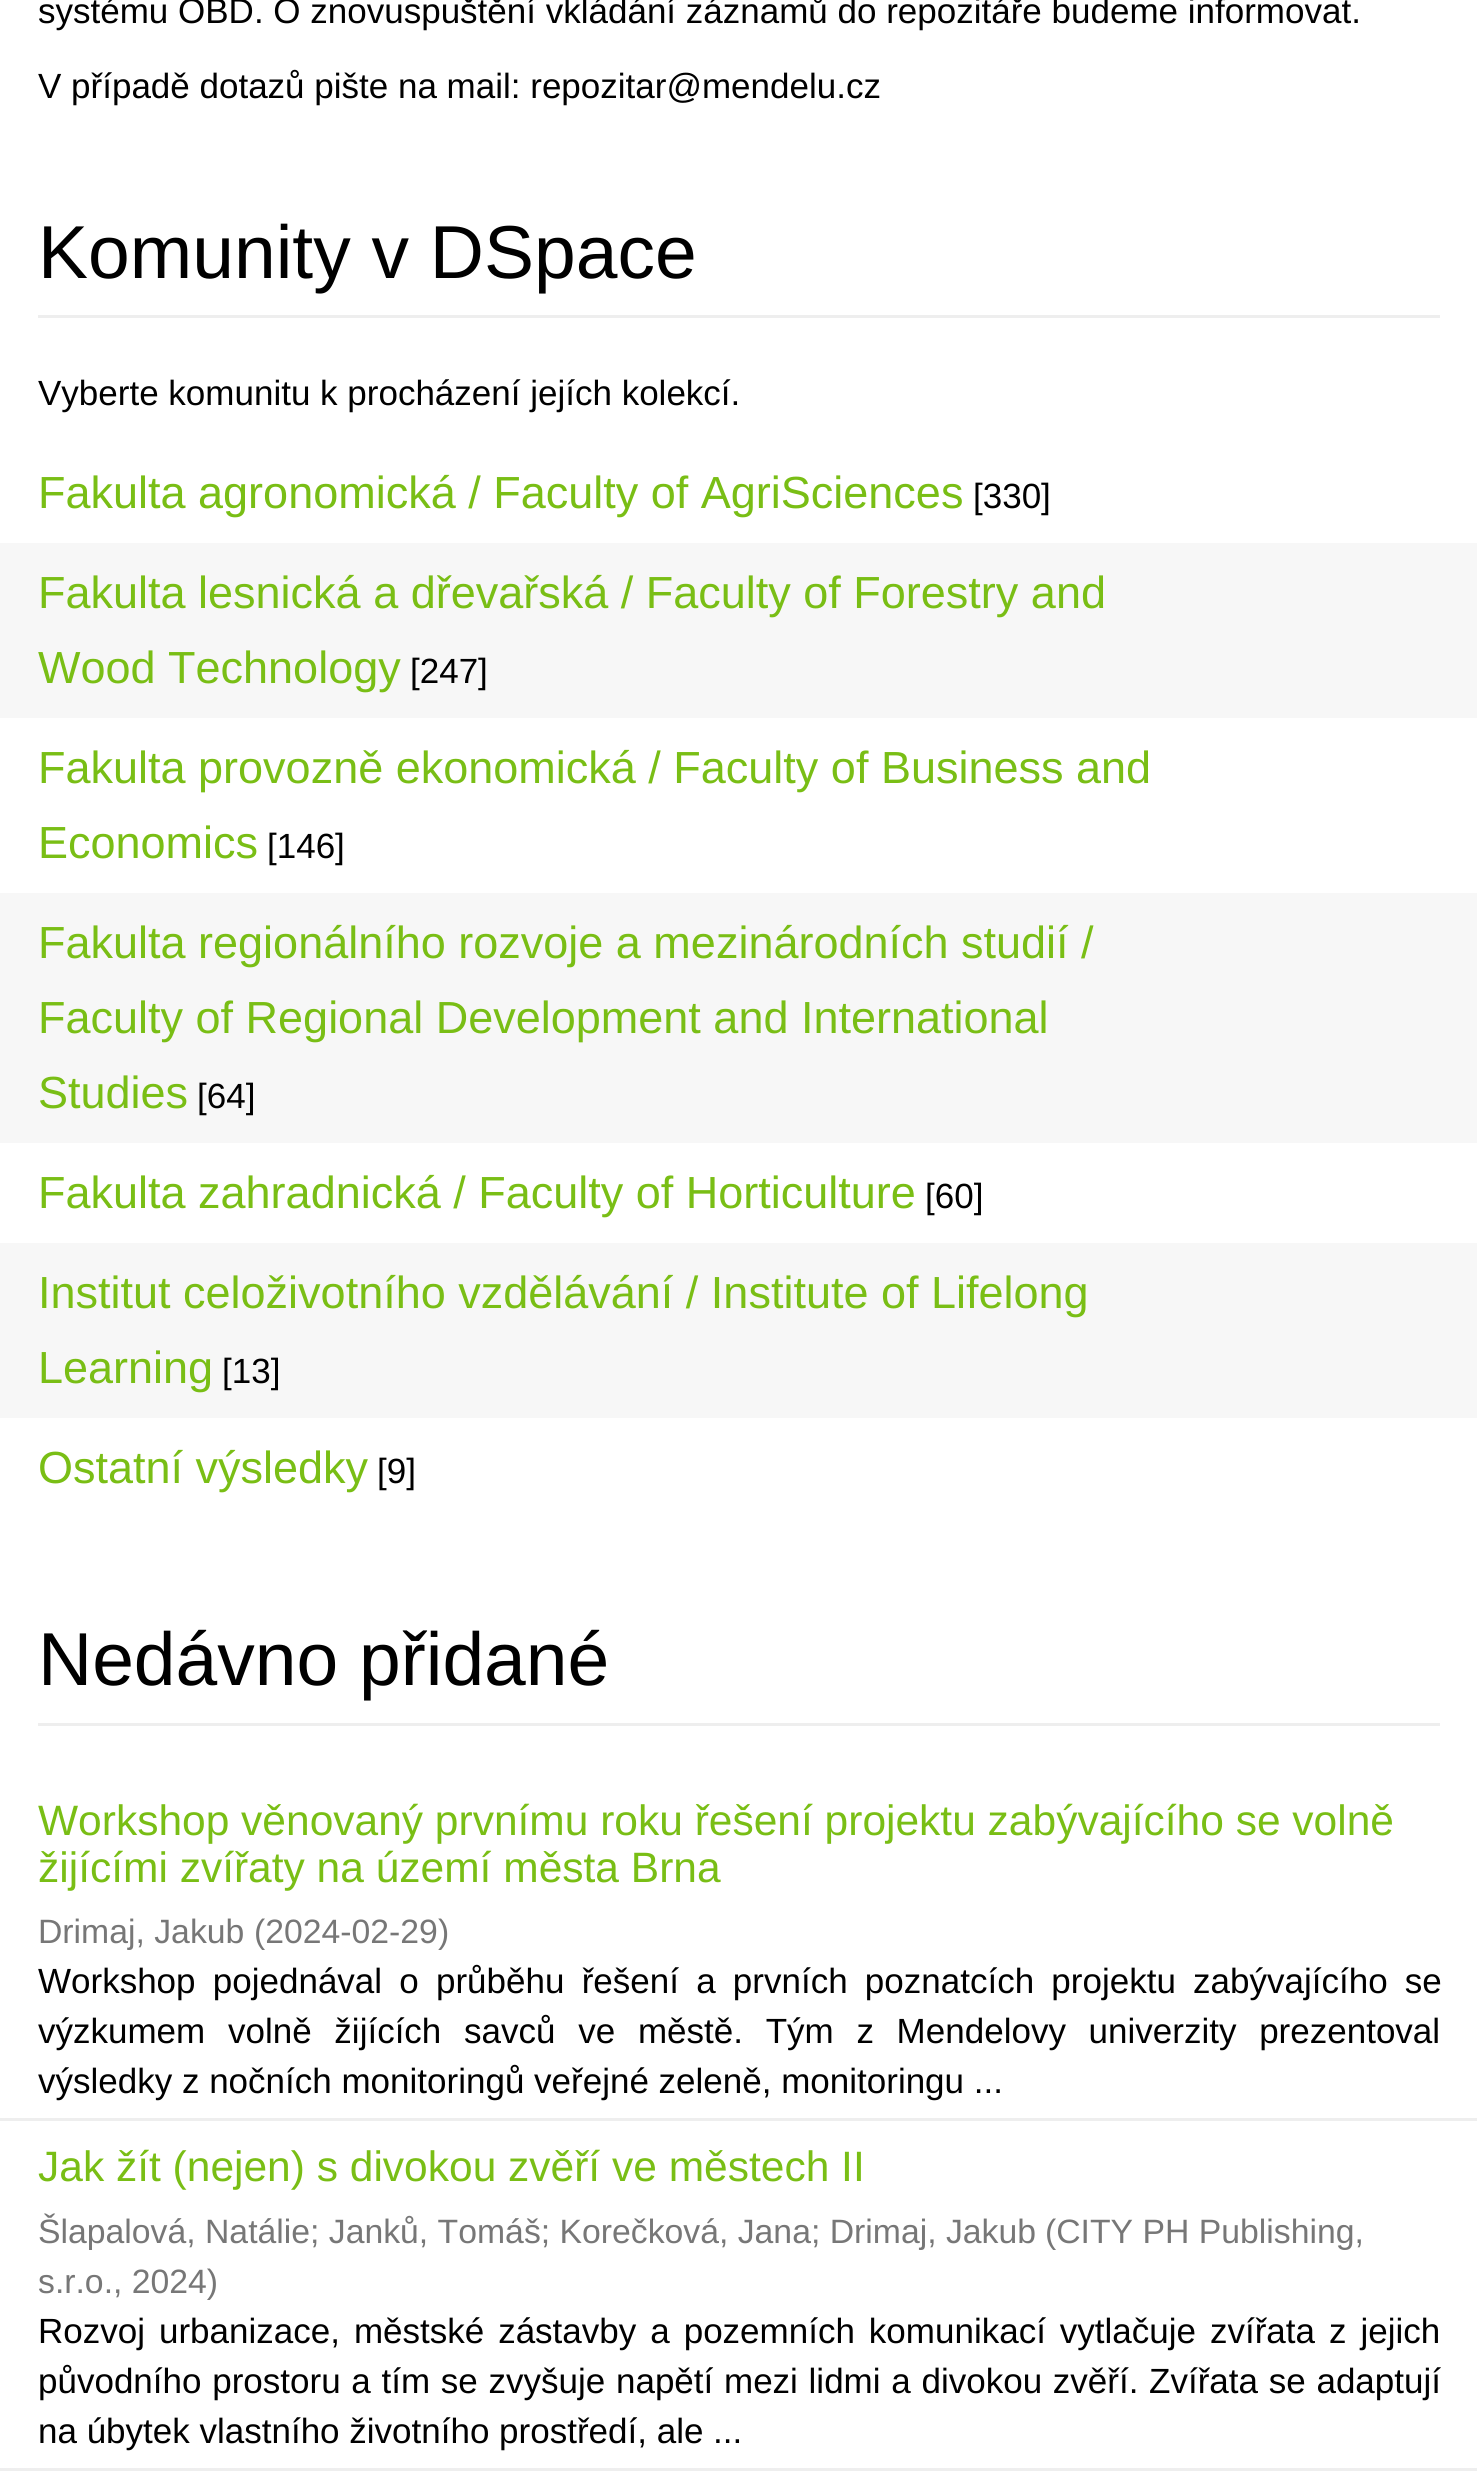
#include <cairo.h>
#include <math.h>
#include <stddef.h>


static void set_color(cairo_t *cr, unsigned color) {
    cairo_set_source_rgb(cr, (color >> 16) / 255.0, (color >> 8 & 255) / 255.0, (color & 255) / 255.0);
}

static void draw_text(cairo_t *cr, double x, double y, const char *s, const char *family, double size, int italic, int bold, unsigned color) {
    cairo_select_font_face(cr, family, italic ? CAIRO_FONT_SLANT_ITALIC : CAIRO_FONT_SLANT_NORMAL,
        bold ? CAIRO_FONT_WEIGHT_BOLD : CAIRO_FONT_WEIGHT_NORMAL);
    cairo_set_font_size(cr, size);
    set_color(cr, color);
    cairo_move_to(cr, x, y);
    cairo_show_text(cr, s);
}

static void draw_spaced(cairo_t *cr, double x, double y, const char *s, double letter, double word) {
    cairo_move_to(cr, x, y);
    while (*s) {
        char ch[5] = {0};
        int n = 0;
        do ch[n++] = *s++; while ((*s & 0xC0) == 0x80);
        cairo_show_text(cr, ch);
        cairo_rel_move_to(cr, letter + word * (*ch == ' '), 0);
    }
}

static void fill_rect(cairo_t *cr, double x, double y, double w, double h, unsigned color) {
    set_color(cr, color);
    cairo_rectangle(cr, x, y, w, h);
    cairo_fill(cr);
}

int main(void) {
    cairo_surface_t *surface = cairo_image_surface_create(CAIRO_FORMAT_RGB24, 1477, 2488);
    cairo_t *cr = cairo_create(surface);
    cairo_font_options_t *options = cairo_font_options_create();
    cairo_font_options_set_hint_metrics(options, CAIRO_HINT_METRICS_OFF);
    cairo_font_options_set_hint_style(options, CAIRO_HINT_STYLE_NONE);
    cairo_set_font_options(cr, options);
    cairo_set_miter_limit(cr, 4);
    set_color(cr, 0xFFFFFF);
    cairo_paint(cr);
    draw_text(cr, 38, 23, "systému OBD. O znovuspuštění vkládání záznamů do repozitáře budeme informovat.", "Liberation Sans", 35, 0, 0, 0x000000);
    draw_text(cr, 38, 98, "V případě dotazů pište na mail: repozitar@mendelu.cz", "Liberation Sans", 35, 0, 0, 0x000000);
    fill_rect(cr, 38, 315, 1402, 3, 0xEEEEEE);
    draw_text(cr, 38, 278, "Komunity v DSpace", "Liberation Sans", 75, 0, 0, 0x000000);
    draw_text(cr, 38, 405, "Vyberte komunitu k procházení jejích kolekcí.", "Liberation Sans", 35, 0, 0, 0x000000);
    draw_text(cr, 38, 508, "Fakulta agronomická / Faculty of AgriSciences", "Liberation Sans", 45, 0, 0, 0x79BE15);
    draw_text(cr, 973, 508, "[330]", "Liberation Sans", 35, 0, 0, 0x000000);
    fill_rect(cr, 0, 543, 1477, 175, 0xF7F7F7);
    draw_text(cr, 38, 608, "Fakulta lesnická a dřevařská / Faculty of Forestry and", "Liberation Sans", 45, 0, 0, 0x79BE15);
    draw_text(cr, 38, 683, "Wood Technology", "Liberation Sans", 45, 0, 0, 0x79BE15);
    draw_text(cr, 410, 683, "[247]", "Liberation Sans", 35, 0, 0, 0x000000);
    draw_text(cr, 38, 783, "Fakulta provozně ekonomická / Faculty of Business and", "Liberation Sans", 45, 0, 0, 0x79BE15);
    draw_text(cr, 38, 858, "Economics", "Liberation Sans", 45, 0, 0, 0x79BE15);
    draw_text(cr, 267, 858, "[146]", "Liberation Sans", 35, 0, 0, 0x000000);
    fill_rect(cr, 0, 893, 1477, 250, 0xF7F7F7);
    draw_text(cr, 38, 958, "Fakulta regionálního rozvoje a mezinárodních studií /", "Liberation Sans", 45, 0, 0, 0x79BE15);
    draw_text(cr, 38, 1033, "Faculty of Regional Development and International", "Liberation Sans", 45, 0, 0, 0x79BE15);
    draw_text(cr, 38, 1108, "Studies", "Liberation Sans", 45, 0, 0, 0x79BE15);
    draw_text(cr, 197, 1108, "[64]", "Liberation Sans", 35, 0, 0, 0x000000);
    draw_text(cr, 38, 1208, "Fakulta zahradnická / Faculty of Horticulture", "Liberation Sans", 45, 0, 0, 0x79BE15);
    draw_text(cr, 925, 1208, "[60]", "Liberation Sans", 35, 0, 0, 0x000000);
    fill_rect(cr, 0, 1243, 1477, 175, 0xF7F7F7);
    draw_text(cr, 38, 1308, "Institut celoživotního vzdělávání / Institute of Lifelong", "Liberation Sans", 45, 0, 0, 0x79BE15);
    draw_text(cr, 38, 1383, "Learning", "Liberation Sans", 45, 0, 0, 0x79BE15);
    draw_text(cr, 222, 1383, "[13]", "Liberation Sans", 35, 0, 0, 0x000000);
    draw_text(cr, 38, 1483, "Ostatní výsledky", "Liberation Sans", 45, 0, 0, 0x79BE15);
    draw_text(cr, 377, 1483, "[9]", "Liberation Sans", 35, 0, 0, 0x000000);
    fill_rect(cr, 38, 1723, 1402, 3, 0xEEEEEE);
    draw_text(cr, 38, 1685, "Nedávno přidané", "Liberation Sans", 75, 0, 0, 0x000000);
    fill_rect(cr, 0, 2118, 1477, 3, 0xEEEEEE);
    draw_text(cr, 38, 1835, "Workshop věnovaný prvnímu roku řešení projektu zabývajícího se volně", "Liberation Sans", 42.5, 0, 0, 0x79BE15);
    draw_text(cr, 38, 1882, "žijícími zvířaty na území města Brna", "Liberation Sans", 42.5, 0, 0, 0x79BE15);
    draw_text(cr, 38, 1943, "Drimaj, Jakub", "Liberation Sans", 33.75, 0, 0, 0x777777);
    draw_text(cr, 254, 1943, "(2024-02-29)", "Liberation Sans", 33.75, 0, 0, 0x777777);
    cairo_set_font_size(cr, 35);
    set_color(cr, 0x000000);
    draw_spaced(cr, 38, 1993, "Workshop pojednával o průběhu řešení a prvních poznatcích projektu zabývajícího se", 0, 7.5);
    draw_spaced(cr, 38, 2043, "výzkumem volně žijících savců ve městě. Tým z Mendelovy univerzity prezentoval", 0, 13);
    draw_text(cr, 38, 2093, "výsledky z nočních monitoringů veřejné zeleně, monitoringu ...", "Liberation Sans", 35, 0, 0, 0x000000);
    fill_rect(cr, 0, 2468, 1477, 3, 0xEEEEEE);
    draw_text(cr, 38, 2181, "Jak žít (nejen) s divokou zvěří ve městech II", "Liberation Sans", 42.5, 0, 0, 0x79BE15);
    draw_text(cr, 38, 2243, "Šlapalová, Natálie; Janků, Tomáš; Korečková, Jana; Drimaj, Jakub", "Liberation Sans", 33.75, 0, 0, 0x777777);
    draw_text(cr, 1045, 2243, "(CITY PH Publishing,", "Liberation Sans", 33.75, 0, 0, 0x777777);
    draw_text(cr, 38, 2293, "s.r.o., 2024)", "Liberation Sans", 33.75, 0, 0, 0x777777);
    cairo_set_font_size(cr, 35);
    set_color(cr, 0x000000);
    draw_spaced(cr, 38, 2343, "Rozvoj urbanizace, městské zástavby a pozemních komunikací vytlačuje zvířata z jejich", 0, 4.25);
    draw_spaced(cr, 38, 2393, "původního prostoru a tím se zvyšuje napětí mezi lidmi a divokou zvěří. Zvířata se adaptují", 0, 1);
    draw_text(cr, 38, 2443, "na úbytek vlastního životního prostředí, ale ...", "Liberation Sans", 35, 0, 0, 0x000000);
    cairo_surface_write_to_png(surface, "output.png");
    cairo_font_options_destroy(options);
    cairo_destroy(cr);
    cairo_surface_destroy(surface);
    return 0;
}
